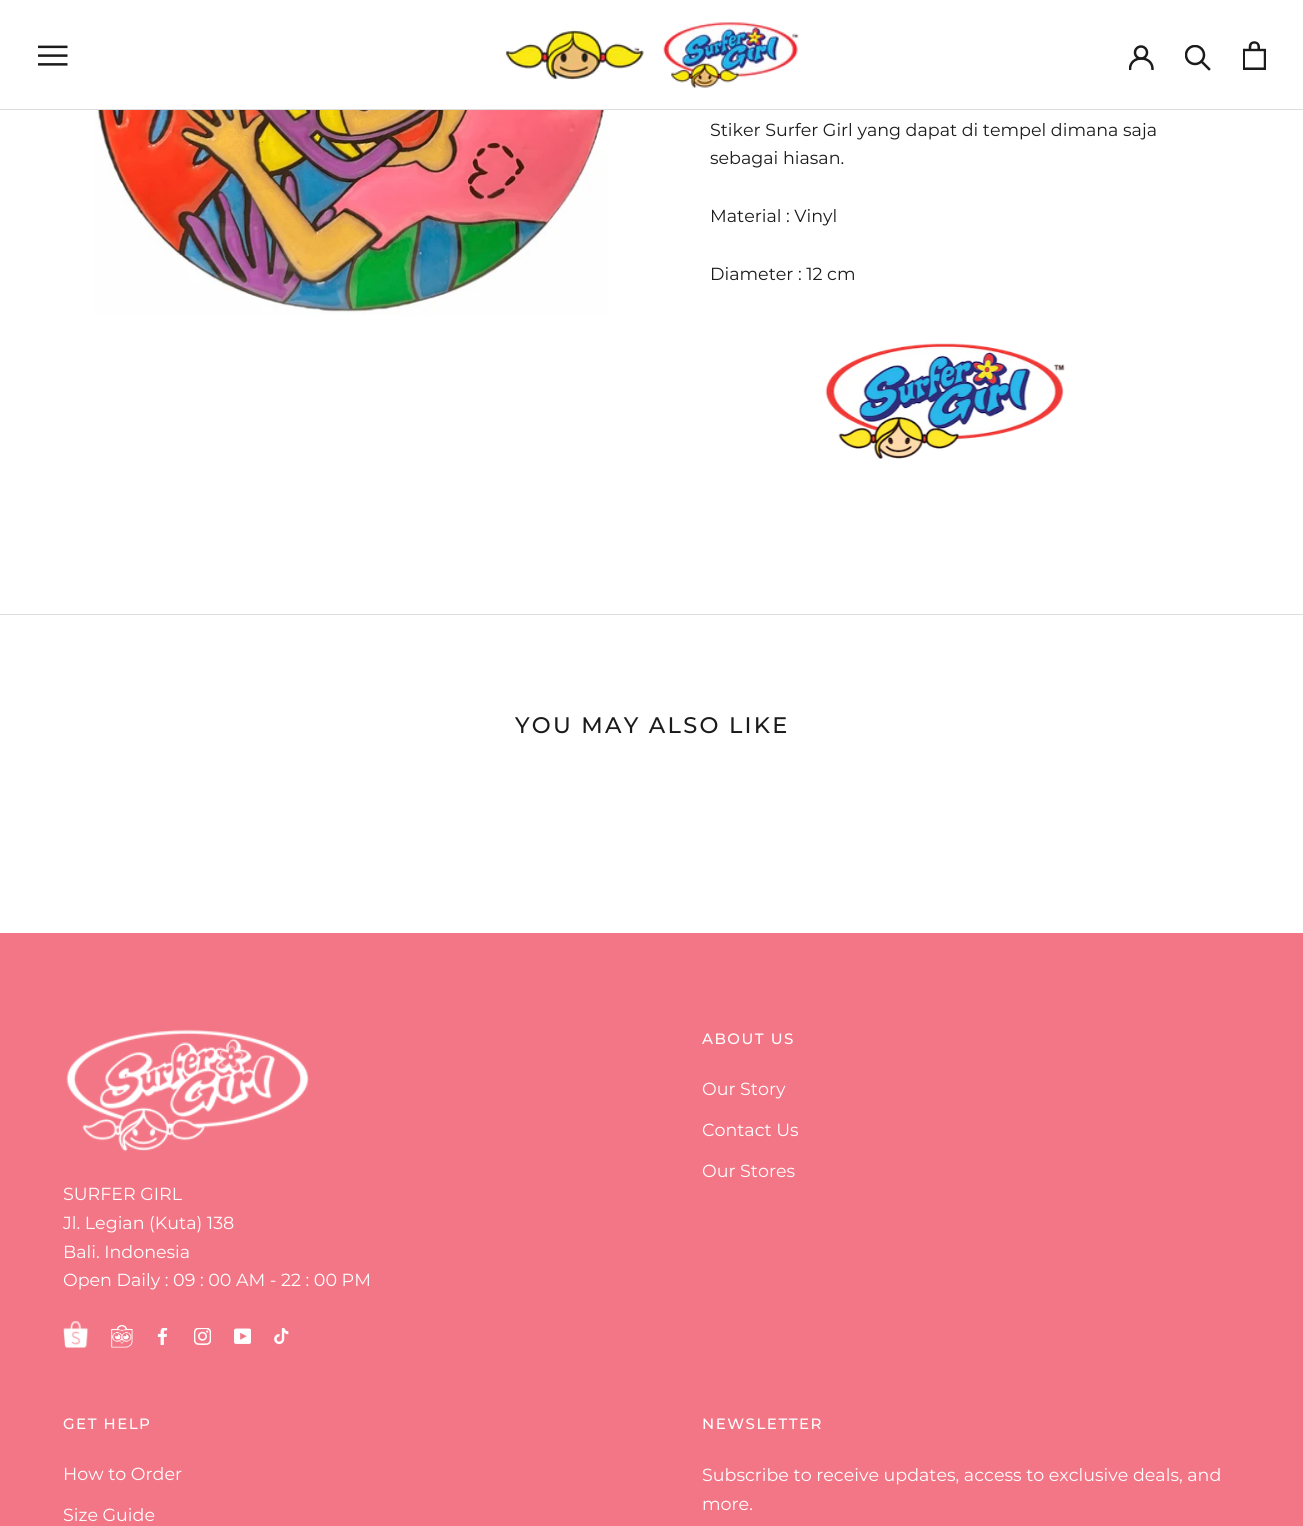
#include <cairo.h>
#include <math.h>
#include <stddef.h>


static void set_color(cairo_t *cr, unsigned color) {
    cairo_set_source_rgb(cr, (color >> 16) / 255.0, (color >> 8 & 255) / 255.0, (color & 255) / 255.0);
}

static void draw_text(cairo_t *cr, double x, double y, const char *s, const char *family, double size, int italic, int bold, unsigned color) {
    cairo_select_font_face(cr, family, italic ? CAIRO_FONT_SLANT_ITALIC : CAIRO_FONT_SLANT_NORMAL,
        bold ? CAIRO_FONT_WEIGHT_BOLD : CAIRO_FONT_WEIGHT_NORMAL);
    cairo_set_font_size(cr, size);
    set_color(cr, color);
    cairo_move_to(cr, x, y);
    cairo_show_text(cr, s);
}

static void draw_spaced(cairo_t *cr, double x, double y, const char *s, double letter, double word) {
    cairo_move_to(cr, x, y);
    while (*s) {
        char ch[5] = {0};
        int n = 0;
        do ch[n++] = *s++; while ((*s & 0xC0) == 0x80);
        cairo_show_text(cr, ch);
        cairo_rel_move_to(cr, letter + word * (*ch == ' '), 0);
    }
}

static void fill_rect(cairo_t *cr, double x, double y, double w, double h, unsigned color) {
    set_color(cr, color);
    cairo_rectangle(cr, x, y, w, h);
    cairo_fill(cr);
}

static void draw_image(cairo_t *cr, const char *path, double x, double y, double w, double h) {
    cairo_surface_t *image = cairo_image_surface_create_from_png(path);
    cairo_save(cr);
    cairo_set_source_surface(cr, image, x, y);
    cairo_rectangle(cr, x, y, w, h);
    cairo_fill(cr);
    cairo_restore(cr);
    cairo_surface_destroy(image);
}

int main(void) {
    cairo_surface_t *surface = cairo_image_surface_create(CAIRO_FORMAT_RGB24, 1303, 1526);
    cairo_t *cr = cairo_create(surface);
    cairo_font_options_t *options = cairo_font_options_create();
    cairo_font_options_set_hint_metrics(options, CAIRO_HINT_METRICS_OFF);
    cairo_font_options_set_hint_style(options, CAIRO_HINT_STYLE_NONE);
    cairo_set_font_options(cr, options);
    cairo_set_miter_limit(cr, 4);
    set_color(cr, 0xFFFFFF);
    cairo_paint(cr);
    fill_rect(cr, 0, 109, 1303, 1, 0xDDDDDD);
    draw_image(cr, "assets/img1.png", 38, 45, 30, 21);
    draw_image(cr, "assets/img2.png", 505, 22, 294, 66);
    cairo_save(cr);
    cairo_rectangle(cr, 1129, 45, 25, 25);
    cairo_clip(cr);
    cairo_new_path(cr);
    cairo_move_to(cr, 1130, 69);
    cairo_curve_to(cr, 1130, 55, 1152.5, 55, 1152.5, 69);
    set_color(cr, 0x1C1B1B);
    cairo_set_line_width(cr, 2.5);
    cairo_set_line_cap(cr, CAIRO_LINE_CAP_SQUARE);
    cairo_stroke(cr);
    cairo_restore(cr);
    cairo_arc(cr, 1141, 52.5, 6, 0, 2 * M_PI);
    set_color(cr, 0x1C1B1B);
    cairo_set_line_width(cr, 2.5);
    cairo_stroke(cr);
    cairo_new_path(cr);
    cairo_move_to(cr, 1209, 69);
    cairo_line_to(cr, 1201.5, 61.5);
    cairo_set_line_cap(cr, CAIRO_LINE_CAP_SQUARE);
    cairo_stroke(cr);
    cairo_save(cr);
    cairo_rectangle(cr, 1185, 45, 26, 26);
    cairo_clip(cr);
    cairo_arc(cr, 1195, 55, 9, 0, 2 * M_PI);
    cairo_set_line_cap(cr, CAIRO_LINE_CAP_BUTT);
    cairo_stroke(cr);
    cairo_restore(cr);
    draw_image(cr, "assets/img3.png", 1243, 41, 23, 29);
    draw_image(cr, "assets/img4.png", 94, 110, 515, 205);
    draw_text(cr, 710, 136, "Stiker Surfer Girl yang dapat di tempel dimana saja", "Montserrat", 17.5, 0, 0, 0x1C1B1B);
    draw_text(cr, 710, 164, "sebagai hiasan.", "Montserrat", 17.5, 0, 0, 0x1C1B1B);
    draw_text(cr, 710, 222, "Material : Vinyl", "Montserrat", 17.5, 0, 0, 0x1C1B1B);
    draw_text(cr, 710, 280, "Diameter : 12 cm", "Montserrat", 17.5, 0, 0, 0x1C1B1B);
    draw_image(cr, "assets/img5.png", 825, 343, 240, 116);
    fill_rect(cr, 0, 614, 1303, 1, 0xDDDDDD);
    cairo_select_font_face(cr, "Montserrat Medium", CAIRO_FONT_SLANT_NORMAL, CAIRO_FONT_WEIGHT_NORMAL);
    cairo_set_font_size(cr, 22.5);
    set_color(cr, 0x1C1B1B);
    draw_spaced(cr, 515, 733, "YOU MAY ALSO LIKE", 2.25, 0);
    fill_rect(cr, 0, 933, 1303, 593, 0xF37686);
    cairo_set_font_size(cr, 15);
    set_color(cr, 0xFFFFFF);
    draw_spaced(cr, 702, 1044, "ABOUT US", 1.5, 0);
    draw_text(cr, 702, 1095, "Our Story", "Montserrat", 17.5, 0, 0, 0xFFFFFF);
    draw_text(cr, 702, 1136, "Contact Us", "Montserrat", 17.5, 0, 0, 0xFFFFFF);
    draw_text(cr, 702, 1177, "Our Stores", "Montserrat", 17.5, 0, 0, 0xFFFFFF);
    draw_image(cr, "assets/img6.png", 66, 1029, 243, 123);
    draw_text(cr, 63, 1200, "SURFER GIRL", "Montserrat", 17.5, 0, 0, 0xFFFFFF);
    draw_text(cr, 63, 1229, "Jl. Legian (Kuta) 138", "Montserrat", 17.5, 0, 0, 0xFFFFFF);
    draw_text(cr, 63, 1258, "Bali. Indonesia", "Montserrat", 17.5, 0, 0, 0xFFFFFF);
    draw_text(cr, 63, 1286, "Open Daily : 09 : 00 AM - 22 : 00 PM", "Montserrat", 17.5, 0, 0, 0xFFFFFF);
    draw_image(cr, "assets/img7.png", 63, 1320, 26, 28);
    draw_image(cr, "assets/img8.png", 111, 1325, 22, 23);
    draw_image(cr, "assets/img9.png", 157, 1328, 11, 17);
    draw_image(cr, "assets/img10.png", 194, 1328, 17, 17);
    draw_image(cr, "assets/img11.png", 234, 1328, 17, 16);
    draw_image(cr, "assets/img12.png", 274, 1328, 15, 17);
    cairo_select_font_face(cr, "Montserrat Medium", CAIRO_FONT_SLANT_NORMAL, CAIRO_FONT_WEIGHT_NORMAL);
    cairo_set_font_size(cr, 15);
    draw_spaced(cr, 63, 1429, "GET HELP", 1.5, 0);
    draw_text(cr, 63, 1480, "How to Order", "Montserrat", 17.5, 0, 0, 0xFFFFFF);
    draw_text(cr, 63, 1521, "Size Guide", "Montserrat", 17.5, 0, 0, 0xFFFFFF);
    cairo_select_font_face(cr, "Montserrat Medium", CAIRO_FONT_SLANT_NORMAL, CAIRO_FONT_WEIGHT_NORMAL);
    cairo_set_font_size(cr, 15);
    draw_spaced(cr, 702, 1429, "NEWSLETTER", 1.5, 0);
    draw_text(cr, 702, 1481, "Subscribe to receive updates, access to exclusive deals, and", "Montserrat", 17.5, 0, 0, 0xFFFFFF);
    draw_text(cr, 702, 1510, "more.", "Montserrat", 17.5, 0, 0, 0xFFFFFF);
    cairo_surface_write_to_png(surface, "output.png");
    cairo_font_options_destroy(options);
    cairo_destroy(cr);
    cairo_surface_destroy(surface);
    return 0;
}
